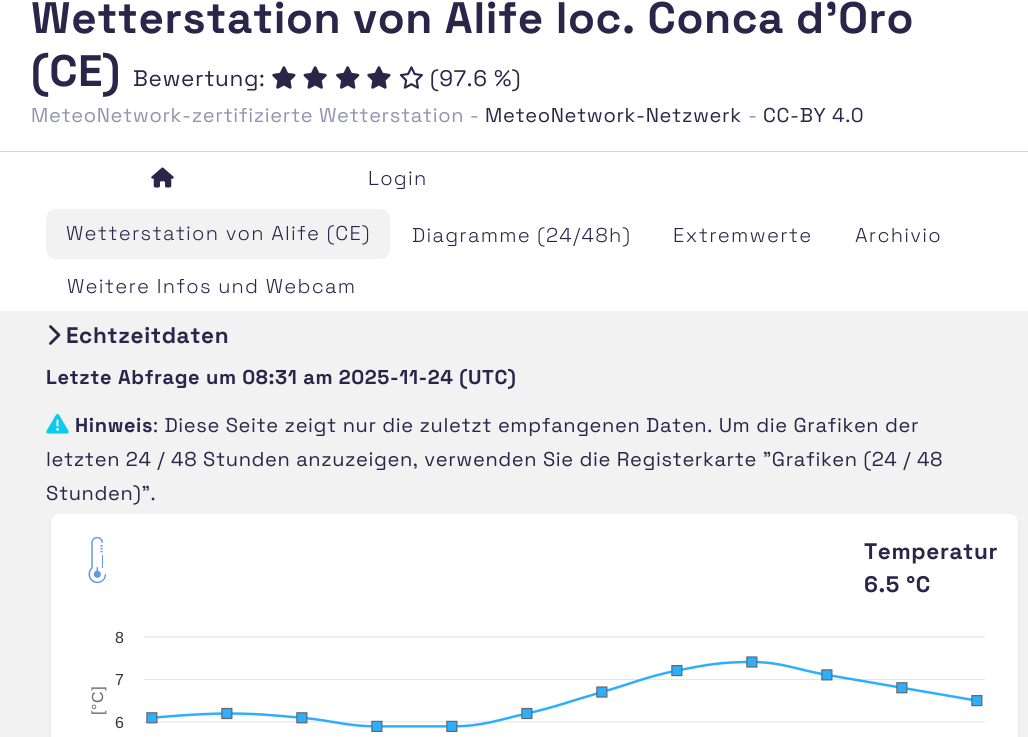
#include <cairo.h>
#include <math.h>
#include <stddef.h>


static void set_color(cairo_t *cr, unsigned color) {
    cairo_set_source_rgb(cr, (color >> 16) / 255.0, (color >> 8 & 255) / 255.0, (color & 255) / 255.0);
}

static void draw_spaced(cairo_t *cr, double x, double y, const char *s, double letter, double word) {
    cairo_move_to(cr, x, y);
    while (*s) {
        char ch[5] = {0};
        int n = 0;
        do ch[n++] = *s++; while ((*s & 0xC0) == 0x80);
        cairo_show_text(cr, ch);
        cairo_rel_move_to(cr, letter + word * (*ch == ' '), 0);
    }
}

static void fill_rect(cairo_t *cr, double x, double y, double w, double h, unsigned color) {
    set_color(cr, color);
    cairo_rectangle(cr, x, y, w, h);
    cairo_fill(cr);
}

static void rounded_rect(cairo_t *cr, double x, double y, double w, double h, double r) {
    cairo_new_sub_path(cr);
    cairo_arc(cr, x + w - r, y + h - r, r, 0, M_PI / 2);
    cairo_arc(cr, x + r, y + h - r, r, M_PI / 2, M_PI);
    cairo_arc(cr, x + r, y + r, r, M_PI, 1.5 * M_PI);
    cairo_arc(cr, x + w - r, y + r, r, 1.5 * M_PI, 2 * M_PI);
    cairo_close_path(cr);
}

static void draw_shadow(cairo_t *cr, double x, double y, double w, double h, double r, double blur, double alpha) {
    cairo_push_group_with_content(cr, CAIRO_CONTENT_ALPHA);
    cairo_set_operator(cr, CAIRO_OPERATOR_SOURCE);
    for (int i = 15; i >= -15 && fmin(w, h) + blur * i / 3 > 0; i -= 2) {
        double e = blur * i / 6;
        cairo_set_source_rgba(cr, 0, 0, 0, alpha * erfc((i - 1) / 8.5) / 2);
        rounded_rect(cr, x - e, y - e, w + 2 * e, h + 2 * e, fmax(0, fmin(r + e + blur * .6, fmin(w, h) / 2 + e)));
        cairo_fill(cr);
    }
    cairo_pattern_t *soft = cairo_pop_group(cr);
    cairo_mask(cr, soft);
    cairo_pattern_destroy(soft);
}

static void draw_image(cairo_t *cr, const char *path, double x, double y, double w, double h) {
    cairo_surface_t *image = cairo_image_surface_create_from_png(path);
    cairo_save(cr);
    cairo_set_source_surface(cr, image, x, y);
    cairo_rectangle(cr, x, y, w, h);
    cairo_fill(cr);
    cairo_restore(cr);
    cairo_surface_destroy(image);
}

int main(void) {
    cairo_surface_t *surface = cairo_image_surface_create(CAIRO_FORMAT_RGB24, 1028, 737);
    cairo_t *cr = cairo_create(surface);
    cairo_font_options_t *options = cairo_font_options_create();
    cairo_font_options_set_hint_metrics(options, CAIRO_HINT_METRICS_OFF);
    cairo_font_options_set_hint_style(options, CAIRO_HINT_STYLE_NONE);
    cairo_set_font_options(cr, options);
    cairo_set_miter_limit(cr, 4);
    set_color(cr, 0xFFFFFF);
    cairo_paint(cr);
    fill_rect(cr, 0, 151, 1028, 1, 0xD3D5E0);
    cairo_select_font_face(cr, "Space Grotesk", CAIRO_FONT_SLANT_NORMAL, CAIRO_FONT_WEIGHT_BOLD);
    cairo_set_font_size(cr, 44);
    set_color(cr, 0x2A2549);
    draw_spaced(cr, 31, 33, "Wetterstation von Alife loc. Conca d'Oro", 0.62, 0);
    draw_spaced(cr, 31, 86, "(CE)", 0.62, 0);
    cairo_select_font_face(cr, "Space Grotesk", CAIRO_FONT_SLANT_NORMAL, CAIRO_FONT_WEIGHT_NORMAL);
    cairo_set_font_size(cr, 22.5);
    draw_spaced(cr, 133, 86, "Bewertung:", 0.62, 0);
    draw_image(cr, "assets/img1.png", 272, 66, 24, 23);
    draw_image(cr, "assets/img2.png", 303, 66, 24, 23);
    draw_image(cr, "assets/img3.png", 336, 66, 24, 23);
    draw_image(cr, "assets/img1.png", 367, 66, 24, 23);
    draw_image(cr, "assets/img4.png", 399, 66, 24, 23);
    draw_spaced(cr, 430, 86, "(97.6 %)", 0.62, 0);
    cairo_set_font_size(cr, 20);
    set_color(cr, 0x9193B1);
    draw_spaced(cr, 31, 122, "MeteoNetwork-zertifizierte Wetterstation -", 0.62, 0);
    set_color(cr, 0x2A2549);
    draw_spaced(cr, 485, 122, "MeteoNetwork-Netzwerk", 0.62, 0);
    set_color(cr, 0x9193B1);
    draw_spaced(cr, 748, 122, "-", 0.62, 0);
    set_color(cr, 0x2A2549);
    draw_spaced(cr, 763, 122, "CC-BY 4.0", 0.62, 0);
    draw_image(cr, "assets/img5.png", 151, 167, 23, 21);
    cairo_select_font_face(cr, "Space Grotesk Light", CAIRO_FONT_SLANT_NORMAL, CAIRO_FONT_WEIGHT_NORMAL);
    draw_spaced(cr, 368, 185, "Login", 1.25, 0);
    set_color(cr, 0xF2F2F2);
    rounded_rect(cr, 46, 209, 344, 50, 10);
    cairo_fill(cr);
    set_color(cr, 0x2A2549);
    draw_spaced(cr, 66, 240, "Wetterstation von Alife (CE)", 1.25, 0);
    draw_spaced(cr, 412, 242, "Diagramme (24/48h)", 1.25, 0);
    draw_spaced(cr, 673, 242, "Extremwerte", 1.25, 0);
    draw_spaced(cr, 855, 242, "Archivio", 1.25, 0);
    draw_spaced(cr, 67, 293, "Weitere Infos und Webcam", 1.25, 0);
    fill_rect(cr, 0, 311, 1028, 426, 0xF2F2F2);
    draw_image(cr, "assets/img6.png", 49, 325, 12, 20);
    cairo_select_font_face(cr, "Space Grotesk", CAIRO_FONT_SLANT_NORMAL, CAIRO_FONT_WEIGHT_BOLD);
    cairo_set_font_size(cr, 22.5);
    set_color(cr, 0x2A2549);
    draw_spaced(cr, 66, 343, "Echtzeitdaten", 0.62, 0);
    cairo_set_font_size(cr, 20);
    draw_spaced(cr, 46, 384, "Letzte Abfrage um 08:31 am 2025-11-24 (UTC)", 0.62, 0);
    draw_image(cr, "assets/img7.png", 46, 413, 23, 21);
    draw_spaced(cr, 75, 432, "Hinweis", 0.62, 0);
    cairo_select_font_face(cr, "Space Grotesk", CAIRO_FONT_SLANT_NORMAL, CAIRO_FONT_WEIGHT_NORMAL);
    draw_spaced(cr, 153, 432, ": Diese Seite zeigt nur die zuletzt empfangenen Daten. Um die Grafiken der", 0.62, 0);
    draw_spaced(cr, 46, 466, "letzten 24 / 48 Stunden anzuzeigen, verwenden Sie die Registerkarte \"Grafiken (24 / 48", 0.62, 0);
    draw_spaced(cr, 46, 500, "Stunden)\".", 0.62, 0);
    set_color(cr, 0x000000);
    draw_shadow(cr, 51, 516, 967, 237, 8, 2.5, 0.07);
    set_color(cr, 0xFFFFFF);
    rounded_rect(cr, 51, 514, 967, 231, 8);
    cairo_fill(cr);
    draw_image(cr, "assets/img8.png", 88, 536, 19, 48);
    cairo_select_font_face(cr, "Space Grotesk", CAIRO_FONT_SLANT_NORMAL, CAIRO_FONT_WEIGHT_BOLD);
    cairo_set_font_size(cr, 22.5);
    set_color(cr, 0x2A2549);
    draw_spaced(cr, 864, 559, "Temperatur", 0.62, 0);
    draw_spaced(cr, 864, 592, "6.5 °C", 0.62, 0);
    cairo_select_font_face(cr, "Liberation Sans", CAIRO_FONT_SLANT_NORMAL, CAIRO_FONT_WEIGHT_NORMAL);
    cairo_set_font_size(cr, 16);
    set_color(cr, 0x333333);
    draw_spaced(cr, 115, 643, "8", 0.62, 0);
    draw_image(cr, "assets/img9.png", 143, 636, 842, 96);
    draw_spaced(cr, 115, 685, "7", 0.62, 0);
    set_color(cr, 0x666666);
    cairo_save(cr);
    cairo_translate(cr, 103, 715);
    cairo_rotate(cr, -90 * M_PI / 180);
    draw_spaced(cr, 0, 0, "[°C]", 0.62, 0);
    cairo_restore(cr);
    set_color(cr, 0x333333);
    draw_spaced(cr, 115, 728, "6", 0.62, 0);
    cairo_surface_write_to_png(surface, "output.png");
    cairo_font_options_destroy(options);
    cairo_destroy(cr);
    cairo_surface_destroy(surface);
    return 0;
}
